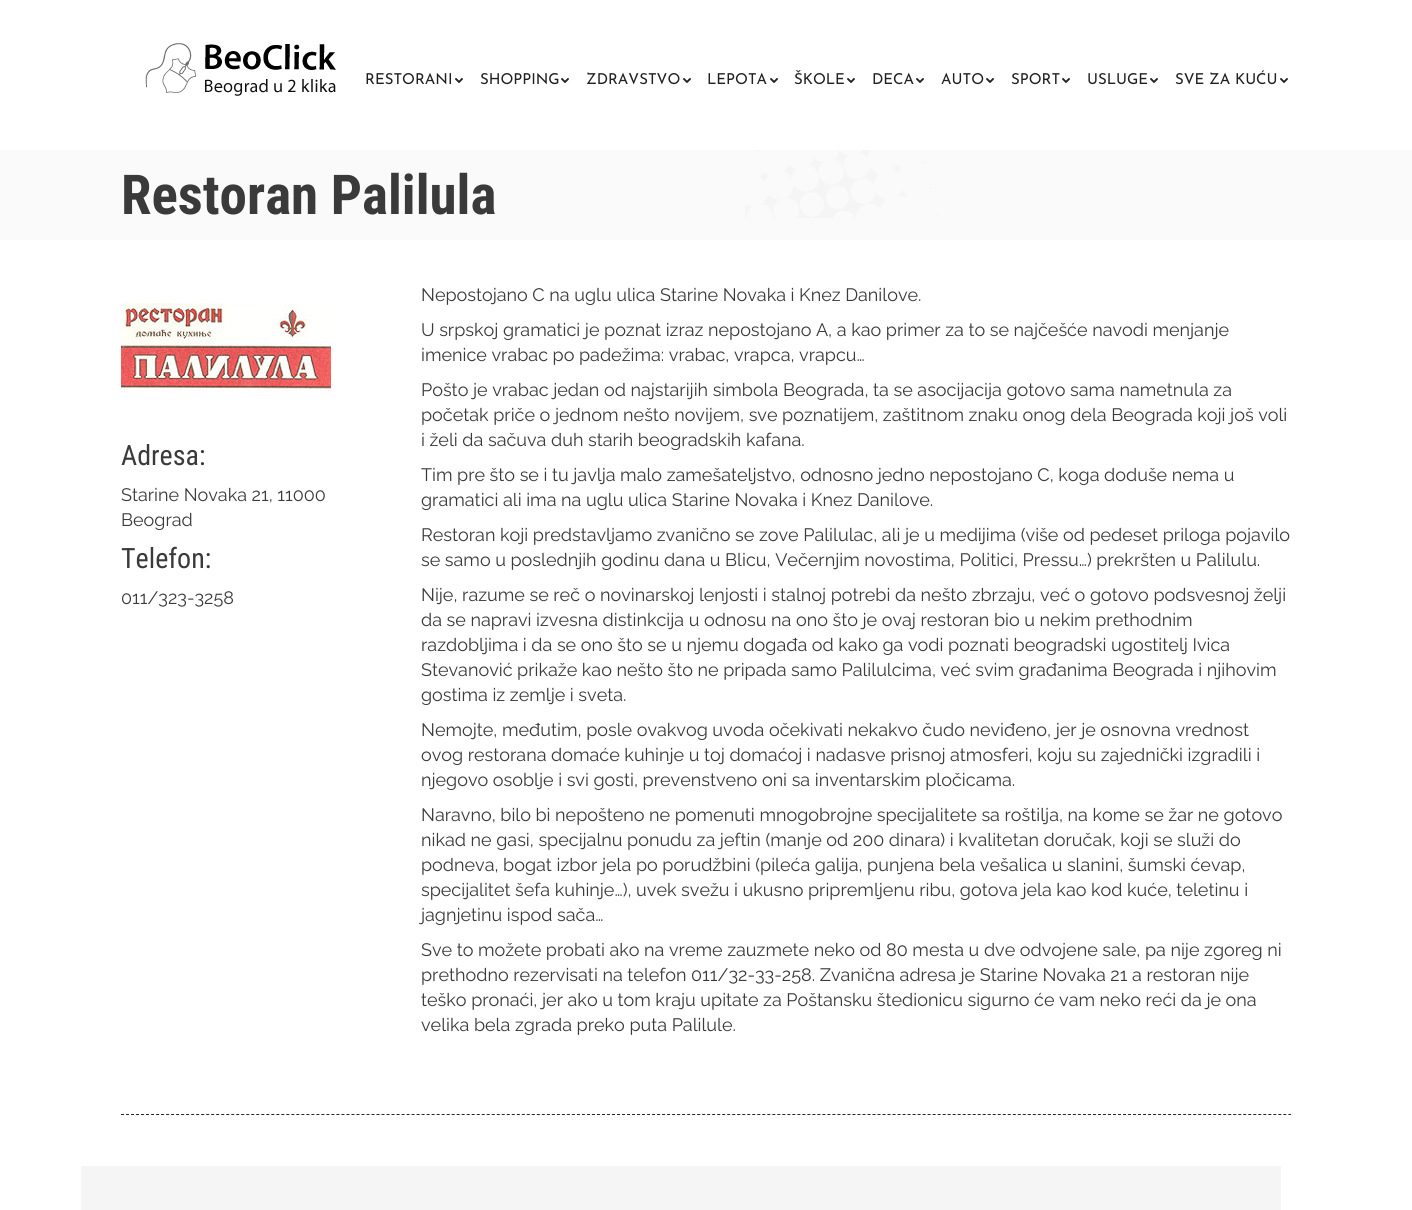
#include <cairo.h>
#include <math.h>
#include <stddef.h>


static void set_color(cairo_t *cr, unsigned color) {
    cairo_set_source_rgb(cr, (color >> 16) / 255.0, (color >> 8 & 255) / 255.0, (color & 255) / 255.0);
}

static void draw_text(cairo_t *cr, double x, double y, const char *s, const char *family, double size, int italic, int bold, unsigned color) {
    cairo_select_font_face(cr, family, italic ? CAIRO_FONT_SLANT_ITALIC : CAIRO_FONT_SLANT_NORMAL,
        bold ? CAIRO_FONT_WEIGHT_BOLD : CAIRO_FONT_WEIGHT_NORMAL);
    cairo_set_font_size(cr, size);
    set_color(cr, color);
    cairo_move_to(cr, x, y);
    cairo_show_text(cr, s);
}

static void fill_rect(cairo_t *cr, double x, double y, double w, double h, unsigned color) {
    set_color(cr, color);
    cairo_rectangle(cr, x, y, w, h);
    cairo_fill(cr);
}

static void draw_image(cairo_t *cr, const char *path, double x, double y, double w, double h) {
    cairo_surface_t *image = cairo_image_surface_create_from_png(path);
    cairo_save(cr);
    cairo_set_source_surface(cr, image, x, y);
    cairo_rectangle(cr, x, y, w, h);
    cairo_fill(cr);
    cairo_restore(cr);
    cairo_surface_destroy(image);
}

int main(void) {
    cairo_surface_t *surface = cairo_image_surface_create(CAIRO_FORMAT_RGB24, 1412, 1210);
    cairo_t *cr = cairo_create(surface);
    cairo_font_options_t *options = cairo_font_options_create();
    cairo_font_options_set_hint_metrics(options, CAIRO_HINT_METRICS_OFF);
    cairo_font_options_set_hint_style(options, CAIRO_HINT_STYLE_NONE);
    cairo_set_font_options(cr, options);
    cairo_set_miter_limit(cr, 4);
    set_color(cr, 0xFFFFFF);
    cairo_paint(cr);
    draw_image(cr, "assets/img1.png", 145, 43, 191, 53);
    draw_text(cr, 365, 84, "RESTORANI", "Josefin Sans", 15, 0, 0, 0x202023);
    draw_image(cr, "assets/img2.png", 455, 78, 8, 5);
    draw_text(cr, 480, 84, "SHOPPING", "Josefin Sans", 15, 0, 0, 0x202023);
    draw_image(cr, "assets/img2.png", 561, 78, 8, 5);
    draw_text(cr, 586, 84, "ZDRAVSTVO", "Josefin Sans", 15, 0, 0, 0x202023);
    draw_image(cr, "assets/img2.png", 683, 78, 8, 5);
    draw_text(cr, 707, 84, "LEPOTA", "Josefin Sans", 15, 0, 0, 0x202023);
    draw_image(cr, "assets/img2.png", 770, 78, 8, 5);
    draw_text(cr, 794, 84, "ŠKOLE", "Josefin Sans", 15, 0, 0, 0x202023);
    draw_image(cr, "assets/img2.png", 847, 78, 8, 5);
    draw_text(cr, 872, 84, "DECA", "Josefin Sans", 15, 0, 0, 0x202023);
    draw_image(cr, "assets/img2.png", 916, 78, 8, 5);
    draw_text(cr, 941, 84, "AUTO", "Josefin Sans", 15, 0, 0, 0x202023);
    draw_image(cr, "assets/img2.png", 986, 78, 8, 5);
    draw_text(cr, 1011, 84, "SPORT", "Josefin Sans", 15, 0, 0, 0x202023);
    draw_image(cr, "assets/img2.png", 1062, 78, 8, 5);
    draw_text(cr, 1087, 84, "USLUGE", "Josefin Sans", 15, 0, 0, 0x202023);
    draw_image(cr, "assets/img2.png", 1150, 78, 8, 5);
    draw_text(cr, 1175, 84, "SVE ZA KUĆU", "Josefin Sans", 15, 0, 0, 0x202023);
    draw_image(cr, "assets/img2.png", 1280, 78, 8, 5);
    fill_rect(cr, 0, 150, 1412, 90, 0xFAFAFA);
    draw_image(cr, "assets/img3.png", 745, 150, 193, 68);
    draw_text(cr, 121, 214, "Restoran Palilula", "Roboto Condensed", 55, 0, 1, 0x3A3A3A);
    draw_image(cr, "assets/img4.png", 121, 298, 210, 96);
    draw_text(cr, 121, 465, "Adresa:", "Roboto Condensed", 28, 0, 0, 0x3A3A3A);
    draw_text(cr, 121, 501, "Starine Novaka 21, 11000", "Raleway", 18, 0, 0, 0x3A3A3A);
    draw_text(cr, 121, 526, "Beograd", "Raleway", 18, 0, 0, 0x3A3A3A);
    draw_text(cr, 121, 568, "Telefon:", "Roboto Condensed", 28, 0, 0, 0x3A3A3A);
    draw_text(cr, 121, 604, "011/323-3258", "Raleway", 18, 0, 0, 0x3A3A3A);
    draw_text(cr, 421, 301, "Nepostojano C na uglu ulica Starine Novaka i Knez Danilove.", "Raleway", 18, 0, 0, 0x3A3A3A);
    draw_text(cr, 421, 336, "U srpskoj gramatici je poznat izraz nepostojano A, a kao primer za to se najčešće navodi menjanje", "Raleway", 18, 0, 0, 0x3A3A3A);
    draw_text(cr, 421, 361, "imenice vrabac po padežima: vrabac, vrapca, vrapcu…", "Raleway", 18, 0, 0, 0x3A3A3A);
    draw_text(cr, 421, 396, "Pošto je vrabac jedan od najstarijih simbola Beograda, ta se asocijacija gotovo sama nametnula za", "Raleway", 18, 0, 0, 0x3A3A3A);
    draw_text(cr, 421, 421, "početak priče o jednom nešto novijem, sve poznatijem, zaštitnom znaku onog dela Beograda koji još voli", "Raleway", 18, 0, 0, 0x3A3A3A);
    draw_text(cr, 421, 446, "i želi da sačuva duh starih beogradskih kafana.", "Raleway", 18, 0, 0, 0x3A3A3A);
    draw_text(cr, 421, 481, "Tim pre što se i tu javlja malo zamešateljstvo, odnosno jedno nepostojano C, koga doduše nema u", "Raleway", 18, 0, 0, 0x3A3A3A);
    draw_text(cr, 421, 506, "gramatici ali ima na uglu ulica Starine Novaka i Knez Danilove.", "Raleway", 18, 0, 0, 0x3A3A3A);
    draw_text(cr, 421, 541, "Restoran koji predstavljamo zvanično se zove Palilulac, ali je u medijima (više od pedeset priloga pojavilo", "Raleway", 18, 0, 0, 0x3A3A3A);
    draw_text(cr, 421, 566, "se samo u poslednjih godinu dana u Blicu, Večernjim novostima, Politici, Pressu…) prekršten u Palilulu.", "Raleway", 18, 0, 0, 0x3A3A3A);
    draw_text(cr, 421, 601, "Nije, razume se reč o novinarskoj lenjosti i stalnoj potrebi da nešto zbrzaju, već o gotovo podsvesnoj želji", "Raleway", 18, 0, 0, 0x3A3A3A);
    draw_text(cr, 421, 626, "da se napravi izvesna distinkcija u odnosu na ono što je ovaj restoran bio u nekim prethodnim", "Raleway", 18, 0, 0, 0x3A3A3A);
    draw_text(cr, 421, 651, "razdobljima i da se ono što se u njemu događa od kako ga vodi poznati beogradski ugostitelj Ivica", "Raleway", 18, 0, 0, 0x3A3A3A);
    draw_text(cr, 421, 676, "Stevanović prikaže kao nešto što ne pripada samo Palilulcima, već svim građanima Beograda i njihovim", "Raleway", 18, 0, 0, 0x3A3A3A);
    draw_text(cr, 421, 701, "gostima iz zemlje i sveta.", "Raleway", 18, 0, 0, 0x3A3A3A);
    draw_text(cr, 421, 736, "Nemojte, međutim, posle ovakvog uvoda očekivati nekakvo čudo neviđeno, jer je osnovna vrednost", "Raleway", 18, 0, 0, 0x3A3A3A);
    draw_text(cr, 421, 761, "ovog restorana domaće kuhinje u toj domaćoj i nadasve prisnoj atmosferi, koju su zajednički izgradili i", "Raleway", 18, 0, 0, 0x3A3A3A);
    draw_text(cr, 421, 786, "njegovo osoblje i svi gosti, prevenstveno oni sa inventarskim pločicama.", "Raleway", 18, 0, 0, 0x3A3A3A);
    draw_text(cr, 421, 821, "Naravno, bilo bi nepošteno ne pomenuti mnogobrojne specijalitete sa roštilja, na kome se žar ne gotovo", "Raleway", 18, 0, 0, 0x3A3A3A);
    draw_text(cr, 421, 846, "nikad ne gasi, specijalnu ponudu za jeftin (manje od 200 dinara) i kvalitetan doručak, koji se služi do", "Raleway", 18, 0, 0, 0x3A3A3A);
    draw_text(cr, 421, 871, "podneva, bogat izbor jela po porudžbini (pileća galija, punjena bela vešalica u slanini, šumski ćevap,", "Raleway", 18, 0, 0, 0x3A3A3A);
    draw_text(cr, 421, 896, "specijalitet šefa kuhinje…), uvek svežu i ukusno pripremljenu ribu, gotova jela kao kod kuće, teletinu i", "Raleway", 18, 0, 0, 0x3A3A3A);
    draw_text(cr, 421, 921, "jagnjetinu ispod sača…", "Raleway", 18, 0, 0, 0x3A3A3A);
    draw_text(cr, 421, 956, "Sve to možete probati ako na vreme zauzmete neko od 80 mesta u dve odvojene sale, pa nije zgoreg ni", "Raleway", 18, 0, 0, 0x3A3A3A);
    draw_text(cr, 421, 981, "prethodno rezervisati na telefon 011/32-33-258. Zvanična adresa je Starine Novaka 21 a restoran nije", "Raleway", 18, 0, 0, 0x3A3A3A);
    draw_text(cr, 421, 1006, "teško pronaći, jer ako u tom kraju upitate za Poštansku štedionicu sigurno će vam neko reći da je ona", "Raleway", 18, 0, 0, 0x3A3A3A);
    draw_text(cr, 421, 1031, "velika bela zgrada preko puta Palilule.", "Raleway", 18, 0, 0, 0x3A3A3A);
    cairo_new_path(cr);
    cairo_move_to(cr, 121, 1114.5);
    cairo_line_to(cr, 1291, 1114.5);
    set_color(cr, 0x262626);
    cairo_set_line_width(cr, 1);
    cairo_set_dash(cr, (double[]){3, 2.01}, 2, 0);
    cairo_stroke(cr);
    fill_rect(cr, 81, 1166, 1200, 44, 0xF5F5F5);
    cairo_surface_write_to_png(surface, "output.png");
    cairo_font_options_destroy(options);
    cairo_destroy(cr);
    cairo_surface_destroy(surface);
    return 0;
}
